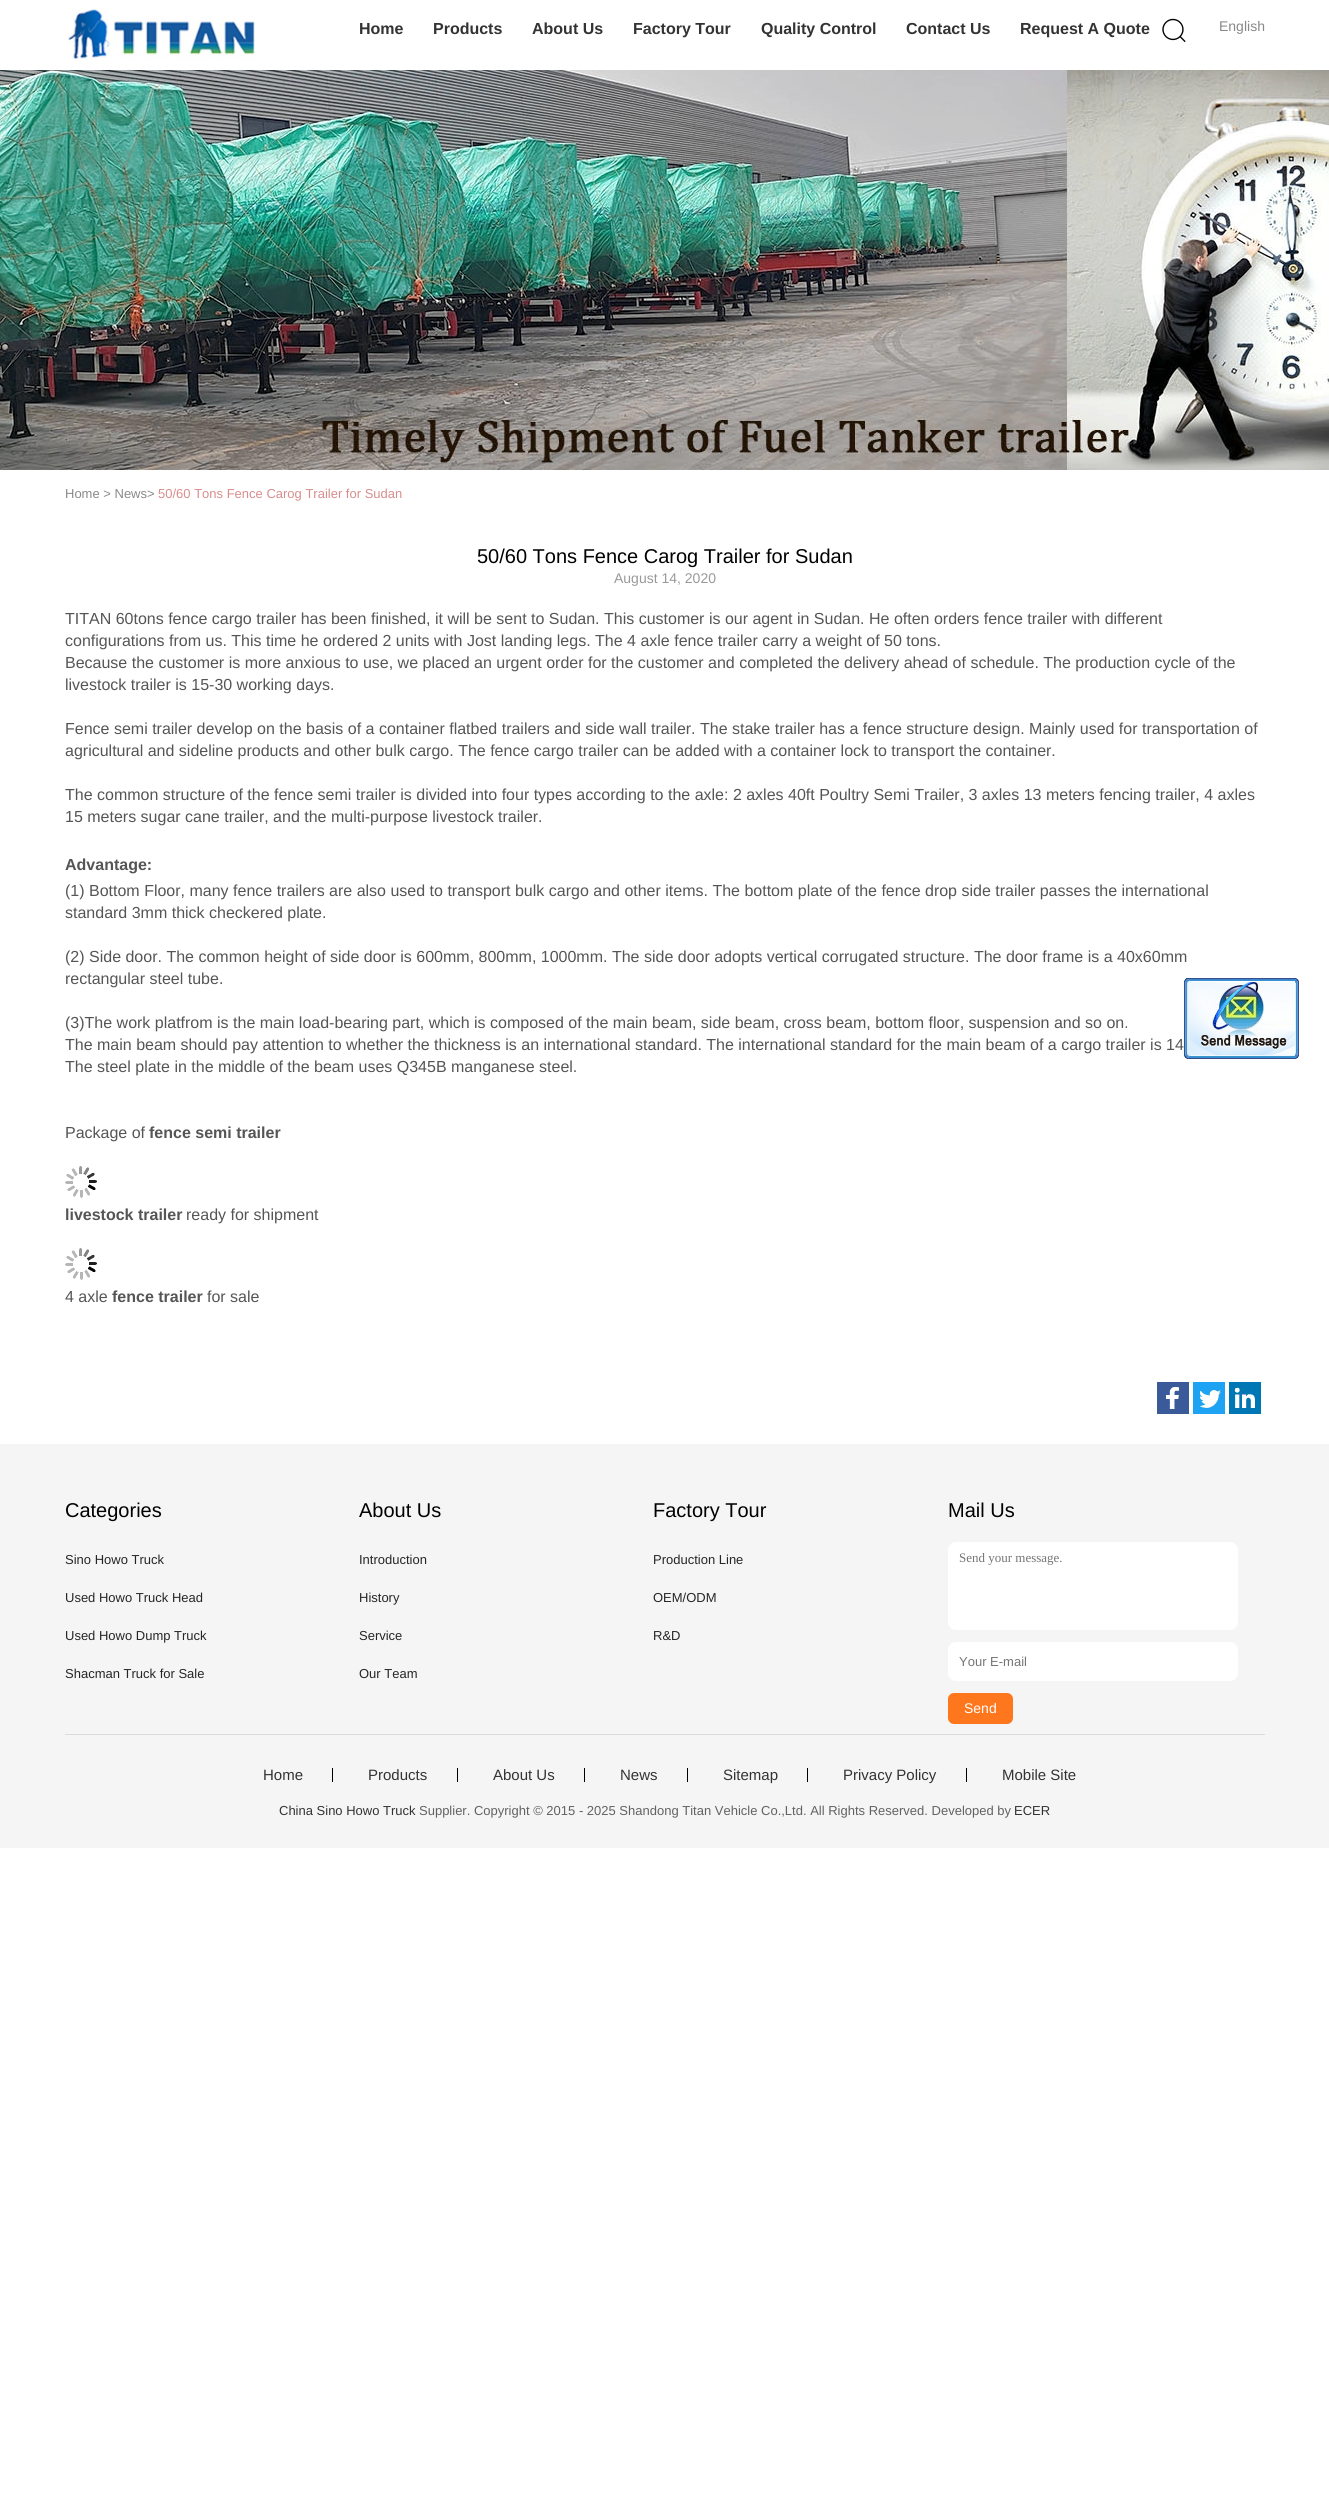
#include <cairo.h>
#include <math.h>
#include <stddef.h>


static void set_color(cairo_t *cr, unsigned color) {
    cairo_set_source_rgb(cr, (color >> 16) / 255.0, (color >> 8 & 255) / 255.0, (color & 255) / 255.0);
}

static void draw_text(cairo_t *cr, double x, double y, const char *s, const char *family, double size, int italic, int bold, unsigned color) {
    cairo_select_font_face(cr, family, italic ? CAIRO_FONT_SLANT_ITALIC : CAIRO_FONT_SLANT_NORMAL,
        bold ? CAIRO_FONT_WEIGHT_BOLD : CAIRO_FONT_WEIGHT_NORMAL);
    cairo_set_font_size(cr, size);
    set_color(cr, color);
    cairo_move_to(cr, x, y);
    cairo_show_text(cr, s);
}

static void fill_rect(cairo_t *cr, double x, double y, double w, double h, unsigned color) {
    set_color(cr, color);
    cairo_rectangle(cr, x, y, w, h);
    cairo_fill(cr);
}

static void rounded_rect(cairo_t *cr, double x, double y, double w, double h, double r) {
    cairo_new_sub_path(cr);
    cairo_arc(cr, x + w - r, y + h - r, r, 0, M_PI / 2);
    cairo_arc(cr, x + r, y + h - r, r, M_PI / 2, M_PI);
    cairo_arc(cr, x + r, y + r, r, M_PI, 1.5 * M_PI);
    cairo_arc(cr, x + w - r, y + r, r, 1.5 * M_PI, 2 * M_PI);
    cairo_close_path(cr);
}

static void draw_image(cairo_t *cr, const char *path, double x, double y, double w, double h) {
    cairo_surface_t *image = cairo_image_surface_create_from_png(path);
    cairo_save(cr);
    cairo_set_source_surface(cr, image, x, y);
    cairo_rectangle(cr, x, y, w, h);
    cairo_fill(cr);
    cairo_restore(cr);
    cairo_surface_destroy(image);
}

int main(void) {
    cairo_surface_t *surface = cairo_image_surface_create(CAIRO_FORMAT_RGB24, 1329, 2513);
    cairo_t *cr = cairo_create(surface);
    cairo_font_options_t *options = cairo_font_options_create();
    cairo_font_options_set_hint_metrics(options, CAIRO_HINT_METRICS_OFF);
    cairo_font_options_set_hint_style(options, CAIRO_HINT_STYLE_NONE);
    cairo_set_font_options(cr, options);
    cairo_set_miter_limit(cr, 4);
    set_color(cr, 0xFFFFFF);
    cairo_paint(cr);
    draw_image(cr, "assets/img1.png", 68, 9, 187, 51);
    draw_text(cr, 359, 34, "Home", "Liberation Sans", 16, 0, 1, 0x333333);
    draw_text(cr, 433, 34, "Products", "Liberation Sans", 16, 0, 1, 0x333333);
    draw_text(cr, 532, 34, "About Us", "Liberation Sans", 16, 0, 1, 0x333333);
    draw_text(cr, 633, 34, "Factory Tour", "Liberation Sans", 16, 0, 1, 0x333333);
    draw_text(cr, 761, 34, "Quality Control", "Liberation Sans", 16, 0, 1, 0x333333);
    draw_text(cr, 906, 34, "Contact Us", "Liberation Sans", 16, 0, 1, 0x333333);
    draw_text(cr, 1020, 34, "Request A Quote", "Liberation Sans", 16, 0, 1, 0x333333);
    draw_image(cr, "assets/img2.png", 1162, 18, 24, 25);
    draw_text(cr, 1219, 31, "English", "Liberation Sans", 14, 0, 0, 0x888888);
    draw_image(cr, "assets/img3.png", 0, 70, 1329, 400);
    draw_text(cr, 65, 498, "Home > News>", "Liberation Sans", 13, 0, 0, 0x888888);
    draw_text(cr, 158, 498, "50/60 Tons Fence Carog Trailer for Sudan", "Liberation Sans", 13, 0, 0, 0xD88D8D);
    draw_text(cr, 477, 563, "50/60 Tons Fence Carog Trailer for Sudan", "Liberation Sans", 20, 0, 0, 0x000000);
    draw_text(cr, 614, 583, "August 14, 2020", "Liberation Sans", 14, 0, 0, 0x999999);
    draw_text(cr, 65, 624, "TITAN 60tons fence cargo trailer has been finished, it will be sent to Sudan. This customer is our agent in Sudan. He often orders fence trailer with different", "Liberation Sans", 16, 0, 0, 0x555555);
    draw_text(cr, 65, 646, "configurations from us. This time he ordered 2 units with Jost landing legs. The 4 axle fence trailer carry a weight of 50 tons.", "Liberation Sans", 16, 0, 0, 0x555555);
    draw_text(cr, 65, 668, "Because the customer is more anxious to use, we placed an urgent order for the customer and completed the delivery ahead of schedule. The production cycle of the", "Liberation Sans", 16, 0, 0, 0x555555);
    draw_text(cr, 65, 690, "livestock trailer is 15-30 working days.", "Liberation Sans", 16, 0, 0, 0x555555);
    draw_text(cr, 65, 734, "Fence semi trailer develop on the basis of a container flatbed trailers and side wall trailer. The stake trailer has a fence structure design. Mainly used for transportation of", "Liberation Sans", 16, 0, 0, 0x555555);
    draw_text(cr, 65, 756, "agricultural and sideline products and other bulk cargo. The fence cargo trailer can be added with a container lock to transport the container.", "Liberation Sans", 16, 0, 0, 0x555555);
    draw_text(cr, 65, 800, "The common structure of the fence semi trailer is divided into four types according to the axle: 2 axles 40ft Poultry Semi Trailer, 3 axles 13 meters fencing trailer, 4 axles", "Liberation Sans", 16, 0, 0, 0x555555);
    draw_text(cr, 65, 822, "15 meters sugar cane trailer, and the multi-purpose livestock trailer.", "Liberation Sans", 16, 0, 0, 0x555555);
    draw_text(cr, 65, 870, "Advantage:", "Liberation Sans", 16, 0, 1, 0x555555);
    draw_text(cr, 65, 896, "(1) Bottom Floor, many fence trailers are also used to transport bulk cargo and other items. The bottom plate of the fence drop side trailer passes the international", "Liberation Sans", 16, 0, 0, 0x555555);
    draw_text(cr, 65, 918, "standard 3mm thick checkered plate.", "Liberation Sans", 16, 0, 0, 0x555555);
    draw_text(cr, 65, 962, "(2) Side door. The common height of side door is 600mm, 800mm, 1000mm. The side door adopts vertical corrugated structure. The door frame is a 40x60mm", "Liberation Sans", 16, 0, 0, 0x555555);
    draw_text(cr, 65, 984, "rectangular steel tube.", "Liberation Sans", 16, 0, 0, 0x555555);
    draw_text(cr, 65, 1028, "(3)The work platfrom is the main load-bearing part, which is composed of the main beam, side beam, cross beam, bottom floor, suspension and so on.", "Liberation Sans", 16, 0, 0, 0x555555);
    draw_text(cr, 65, 1050, "The main beam should pay attention to whether the thickness is an international standard. The international standard for the main beam of a cargo trailer is 14", "Liberation Sans", 16, 0, 0, 0x555555);
    draw_text(cr, 65, 1072, "The steel plate in the middle of the beam uses Q345B manganese steel.", "Liberation Sans", 16, 0, 0, 0x555555);
    draw_text(cr, 65, 1138, "Package of", "Liberation Sans", 16, 0, 0, 0x555555);
    draw_text(cr, 149, 1138, "fence semi trailer", "Liberation Sans", 16, 0, 1, 0x555555);
    draw_image(cr, "assets/img4.png", 65, 1166, 32, 32);
    draw_text(cr, 65, 1220, "livestock trailer", "Liberation Sans", 16, 0, 1, 0x555555);
    draw_text(cr, 186, 1220, "ready for shipment", "Liberation Sans", 16, 0, 0, 0x555555);
    draw_image(cr, "assets/img4.png", 65, 1248, 32, 32);
    draw_text(cr, 65, 1302, "4 axle", "Liberation Sans", 16, 0, 0, 0x555555);
    draw_text(cr, 112, 1302, "fence trailer", "Liberation Sans", 16, 0, 1, 0x555555);
    draw_text(cr, 207, 1302, "for sale", "Liberation Sans", 16, 0, 0, 0x555555);
    draw_image(cr, "assets/img5.png", 1184, 978, 115, 81);
    draw_image(cr, "assets/img6.png", 1157, 1382, 32, 32);
    draw_image(cr, "assets/img7.png", 1193, 1382, 32, 32);
    draw_image(cr, "assets/img8.png", 1229, 1382, 32, 32);
    fill_rect(cr, 0, 1444, 1329, 404, 0xF5F5F5);
    draw_text(cr, 65, 1517, "Categories", "Liberation Sans", 20, 0, 0, 0x000000);
    draw_text(cr, 65, 1564, "Sino Howo Truck", "Liberation Sans", 13, 0, 0, 0x262626);
    draw_text(cr, 65, 1602, "Used Howo Truck Head", "Liberation Sans", 13, 0, 0, 0x262626);
    draw_text(cr, 65, 1640, "Used Howo Dump Truck", "Liberation Sans", 13, 0, 0, 0x262626);
    draw_text(cr, 65, 1678, "Shacman Truck for Sale", "Liberation Sans", 13, 0, 0, 0x262626);
    draw_text(cr, 359, 1517, "About Us", "Liberation Sans", 20, 0, 0, 0x000000);
    draw_text(cr, 359, 1564, "Introduction", "Liberation Sans", 13, 0, 0, 0x262626);
    draw_text(cr, 359, 1602, "History", "Liberation Sans", 13, 0, 0, 0x262626);
    draw_text(cr, 359, 1640, "Service", "Liberation Sans", 13, 0, 0, 0x262626);
    draw_text(cr, 359, 1678, "Our Team", "Liberation Sans", 13, 0, 0, 0x262626);
    draw_text(cr, 653, 1517, "Factory Tour", "Liberation Sans", 20, 0, 0, 0x000000);
    draw_text(cr, 653, 1564, "Production Line", "Liberation Sans", 13, 0, 0, 0x262626);
    draw_text(cr, 653, 1602, "OEM/ODM", "Liberation Sans", 13, 0, 0, 0x262626);
    draw_text(cr, 653, 1640, "R&D", "Liberation Sans", 13, 0, 0, 0x262626);
    draw_text(cr, 948, 1517, "Mail Us", "Liberation Sans", 20, 0, 0, 0x000000);
    set_color(cr, 0xFFFFFF);
    rounded_rect(cr, 948, 1542, 290, 88, 8);
    cairo_fill(cr);
    draw_text(cr, 959, 1562, "Send your message.", "Liberation Serif", 13, 0, 0, 0x757575);
    set_color(cr, 0xFFFFFF);
    rounded_rect(cr, 948, 1642, 290, 39, 8);
    cairo_fill(cr);
    draw_text(cr, 959, 1666, "Your E-mail", "Liberation Sans", 13, 0, 0, 0x757575);
    set_color(cr, 0xFF771C);
    rounded_rect(cr, 948, 1693, 65, 31, 6);
    cairo_fill(cr);
    draw_text(cr, 964, 1713, "Send", "Liberation Sans", 14, 0, 0, 0xFFFFFF);
    fill_rect(cr, 65, 1734, 1200, 1, 0xDBDBDB);
    draw_text(cr, 263, 1780, "Home", "Liberation Sans", 15, 0, 0, 0x333333);
    fill_rect(cr, 332, 1768, 1, 14, 0x000000);
    draw_text(cr, 368, 1780, "Products", "Liberation Sans", 15, 0, 0, 0x333333);
    fill_rect(cr, 457, 1768, 1, 14, 0x000000);
    draw_text(cr, 493, 1780, "About Us", "Liberation Sans", 15, 0, 0, 0x333333);
    fill_rect(cr, 584, 1768, 1, 14, 0x000000);
    draw_text(cr, 620, 1780, "News", "Liberation Sans", 15, 0, 0, 0x333333);
    fill_rect(cr, 687, 1768, 1, 14, 0x000000);
    draw_text(cr, 723, 1780, "Sitemap", "Liberation Sans", 15, 0, 0, 0x333333);
    fill_rect(cr, 807, 1768, 1, 14, 0x000000);
    draw_text(cr, 843, 1780, "Privacy Policy", "Liberation Sans", 15, 0, 0, 0x333333);
    fill_rect(cr, 966, 1768, 1, 14, 0x000000);
    draw_text(cr, 1002, 1780, "Mobile Site", "Liberation Sans", 15, 0, 0, 0x333333);
    draw_text(cr, 279, 1815, "China Sino Howo Truck", "Liberation Sans", 13, 0, 0, 0x333333);
    draw_text(cr, 419, 1815, "Supplier. Copyright © 2015 - 2025 Shandong Titan Vehicle Co.,Ltd. All Rights Reserved. Developed by", "Liberation Sans", 13, 0, 0, 0x626262);
    draw_text(cr, 1014, 1815, "ECER", "Liberation Sans", 13, 0, 0, 0x333333);
    cairo_surface_write_to_png(surface, "output.png");
    cairo_font_options_destroy(options);
    cairo_destroy(cr);
    cairo_surface_destroy(surface);
    return 0;
}
